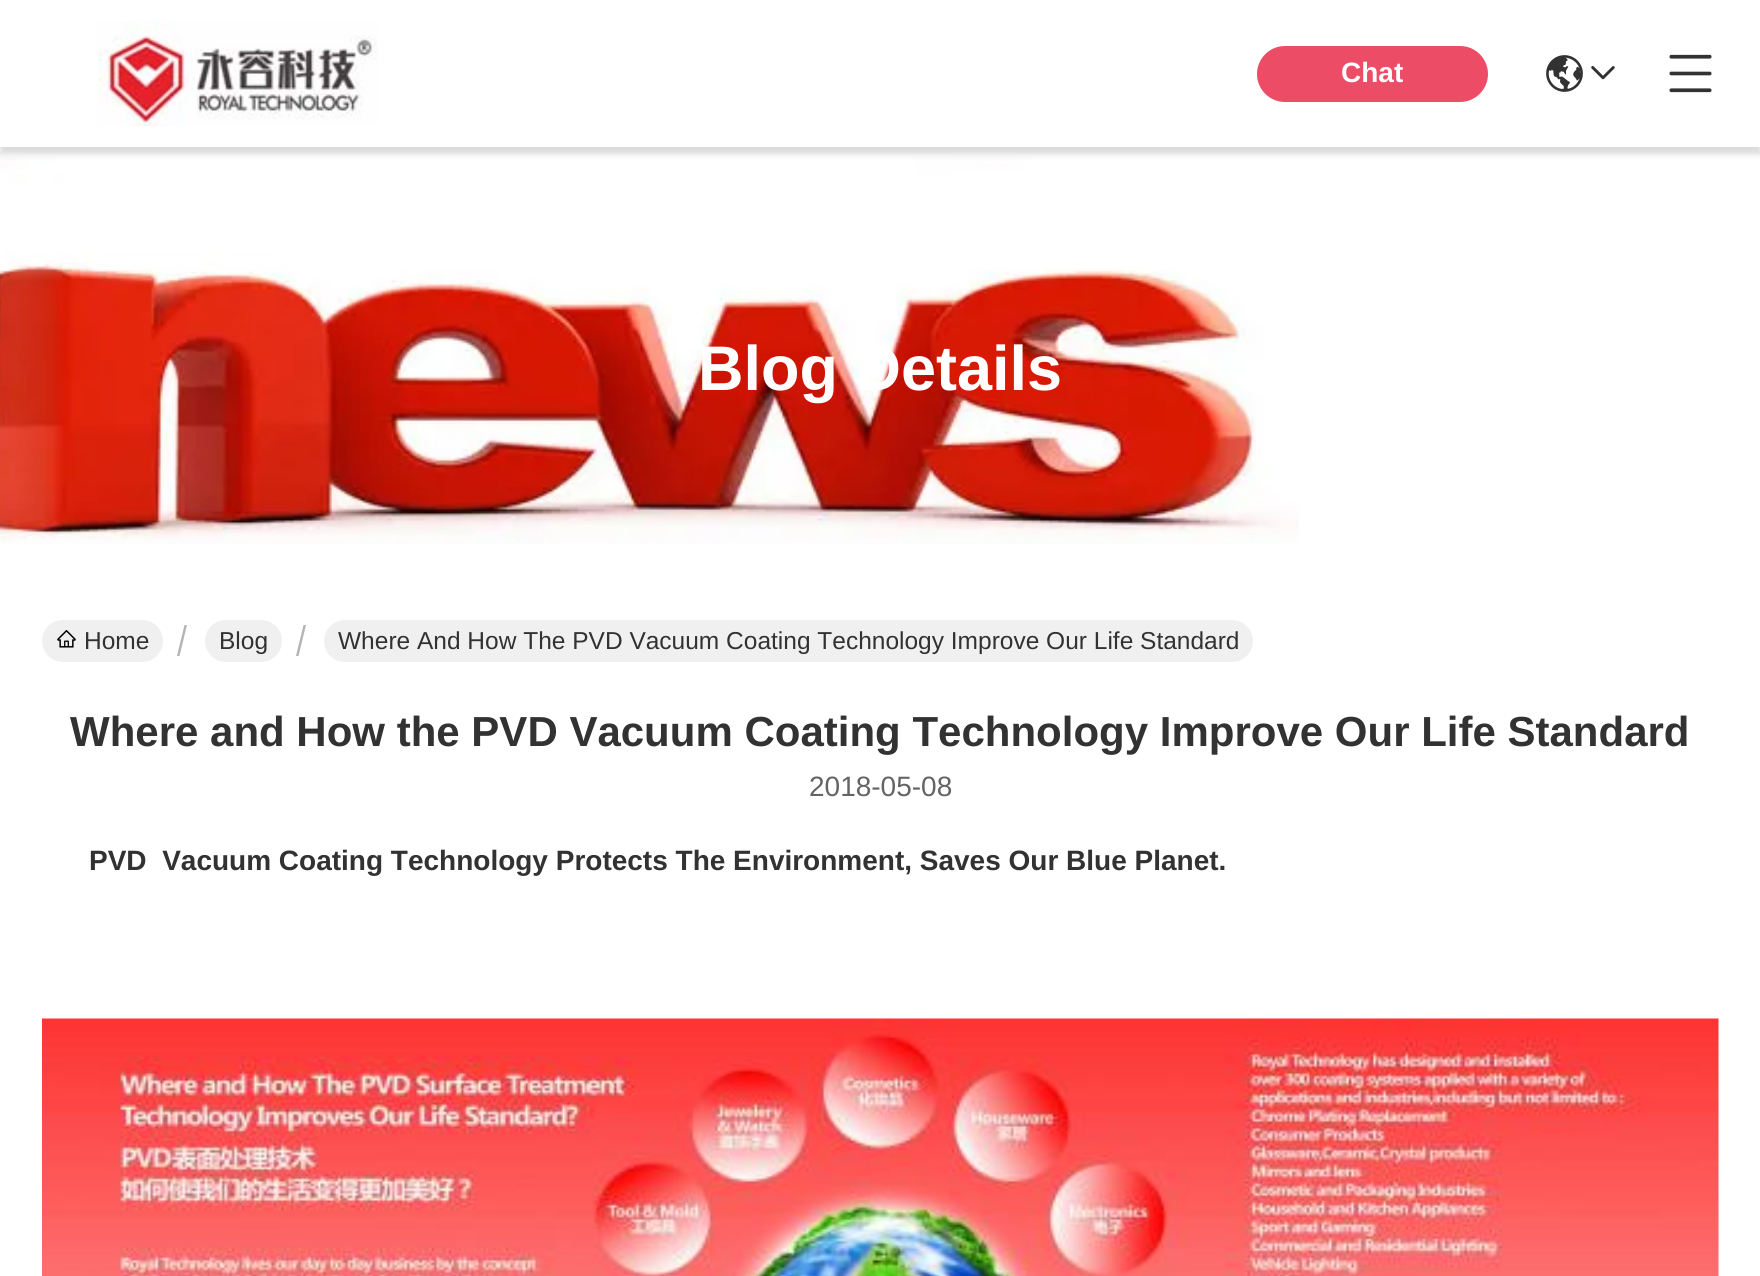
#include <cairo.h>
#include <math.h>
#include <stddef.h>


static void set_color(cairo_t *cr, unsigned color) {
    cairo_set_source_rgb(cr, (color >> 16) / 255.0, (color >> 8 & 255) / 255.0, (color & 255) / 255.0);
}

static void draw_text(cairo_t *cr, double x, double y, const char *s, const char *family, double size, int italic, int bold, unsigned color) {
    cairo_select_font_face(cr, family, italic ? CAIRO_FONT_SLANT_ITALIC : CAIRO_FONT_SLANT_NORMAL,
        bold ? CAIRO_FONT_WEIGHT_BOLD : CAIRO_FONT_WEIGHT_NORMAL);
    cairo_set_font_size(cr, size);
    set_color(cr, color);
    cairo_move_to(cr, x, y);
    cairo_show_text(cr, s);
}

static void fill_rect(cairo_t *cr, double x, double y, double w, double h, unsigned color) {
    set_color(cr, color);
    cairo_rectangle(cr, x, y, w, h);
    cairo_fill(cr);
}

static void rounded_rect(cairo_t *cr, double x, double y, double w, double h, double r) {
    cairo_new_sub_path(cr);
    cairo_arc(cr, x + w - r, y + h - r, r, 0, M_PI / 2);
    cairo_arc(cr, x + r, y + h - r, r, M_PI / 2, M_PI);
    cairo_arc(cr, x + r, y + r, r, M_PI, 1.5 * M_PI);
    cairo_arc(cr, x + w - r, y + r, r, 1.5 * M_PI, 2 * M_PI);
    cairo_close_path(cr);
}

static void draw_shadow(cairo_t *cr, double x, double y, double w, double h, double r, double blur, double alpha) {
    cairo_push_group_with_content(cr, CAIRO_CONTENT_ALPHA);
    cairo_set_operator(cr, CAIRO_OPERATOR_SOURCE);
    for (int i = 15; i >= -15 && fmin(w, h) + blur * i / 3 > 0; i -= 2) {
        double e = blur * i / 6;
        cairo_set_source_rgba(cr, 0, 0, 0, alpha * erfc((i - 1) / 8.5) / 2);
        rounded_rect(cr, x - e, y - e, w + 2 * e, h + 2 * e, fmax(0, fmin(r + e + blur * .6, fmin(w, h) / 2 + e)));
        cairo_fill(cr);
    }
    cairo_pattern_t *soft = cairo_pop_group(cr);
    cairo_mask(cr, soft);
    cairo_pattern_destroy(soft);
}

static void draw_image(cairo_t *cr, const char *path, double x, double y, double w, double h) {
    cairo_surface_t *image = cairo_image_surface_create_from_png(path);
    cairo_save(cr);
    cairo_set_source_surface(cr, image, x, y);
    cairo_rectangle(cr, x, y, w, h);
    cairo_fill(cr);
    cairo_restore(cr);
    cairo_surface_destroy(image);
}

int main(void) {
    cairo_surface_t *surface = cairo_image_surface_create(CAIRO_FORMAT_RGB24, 1760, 1276);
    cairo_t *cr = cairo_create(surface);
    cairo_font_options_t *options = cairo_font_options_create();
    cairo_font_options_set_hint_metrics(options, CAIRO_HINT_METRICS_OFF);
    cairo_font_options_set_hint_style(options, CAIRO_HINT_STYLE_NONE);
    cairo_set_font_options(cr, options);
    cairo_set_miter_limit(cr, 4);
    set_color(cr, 0xFFFFFF);
    cairo_paint(cr);
    draw_image(cr, "assets/img5.png", 0, 157, 1299, 387);
    set_color(cr, 0x000000);
    draw_shadow(cr, 0, 7, 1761, 147, 0, 3.5, 0.15);
    fill_rect(cr, 0, 2, 1760, 145, 0xFFFFFF);
    draw_image(cr, "assets/img1.png", 97, 21, 281, 105);
    set_color(cr, 0xED4C67);
    rounded_rect(cr, 1257, 46, 231, 56, 28);
    cairo_fill(cr);
    draw_text(cr, 1341, 82, "Chat", "Liberation Sans", 28, 0, 1, 0xFFFFFF);
    draw_image(cr, "assets/img2.png", 1546, 55, 37, 37);
    draw_image(cr, "assets/img3.png", 1591, 66, 24, 14);
    draw_image(cr, "assets/img4.png", 1669, 54, 43, 39);
    draw_text(cr, 698, 390, "Blog Details", "Liberation Sans", 63, 0, 1, 0xFFFFFF);
    set_color(cr, 0xF0F0F0);
    rounded_rect(cr, 42, 620, 121, 42, 21);
    cairo_fill(cr);
    draw_image(cr, "assets/img6.png", 57, 630, 19, 18);
    draw_text(cr, 84, 649, "Home", "Liberation Sans", 24.5, 0, 0, 0x323232);
    set_color(cr, 0xB4B4B4);
    cairo_set_fill_rule(cr, CAIRO_FILL_RULE_EVEN_ODD);
    cairo_new_path(cr);
    cairo_move_to(cr, 187, 625);
    cairo_line_to(cr, 179.5, 656);
    cairo_line_to(cr, 177, 656);
    cairo_line_to(cr, 184.5, 625);
    cairo_close_path(cr);
    cairo_fill(cr);
    set_color(cr, 0xF0F0F0);
    rounded_rect(cr, 205, 620, 77, 42, 21);
    cairo_fill(cr);
    draw_text(cr, 219, 649, "Blog", "Liberation Sans", 24.5, 0, 0, 0x323232);
    set_color(cr, 0xB4B4B4);
    cairo_new_path(cr);
    cairo_move_to(cr, 306, 625);
    cairo_line_to(cr, 298.5, 656);
    cairo_line_to(cr, 296, 656);
    cairo_line_to(cr, 303.5, 625);
    cairo_close_path(cr);
    cairo_fill(cr);
    set_color(cr, 0xF0F0F0);
    rounded_rect(cr, 324, 620, 929, 42, 21);
    cairo_fill(cr);
    draw_text(cr, 338, 649, "Where And How The PVD Vacuum Coating Technology Improve Our Life Standard", "Liberation Sans", 24.5, 0, 0, 0x323232);
    draw_text(cr, 70, 746, "Where and How the PVD Vacuum Coating Technology Improve Our Life Standard", "Liberation Sans", 42, 0, 1, 0x323232);
    draw_text(cr, 809, 796, "2018-05-08", "Liberation Sans", 28, 0, 0, 0x646464);
    draw_text(cr, 89, 870, "PVD  Vacuum Coating Technology Protects The Environment, Saves Our Blue Planet.", "Liberation Sans", 28, 0, 1, 0x323232);
    draw_image(cr, "assets/img7.png", 42, 1018, 1677, 258);
    cairo_surface_write_to_png(surface, "output.png");
    cairo_font_options_destroy(options);
    cairo_destroy(cr);
    cairo_surface_destroy(surface);
    return 0;
}
